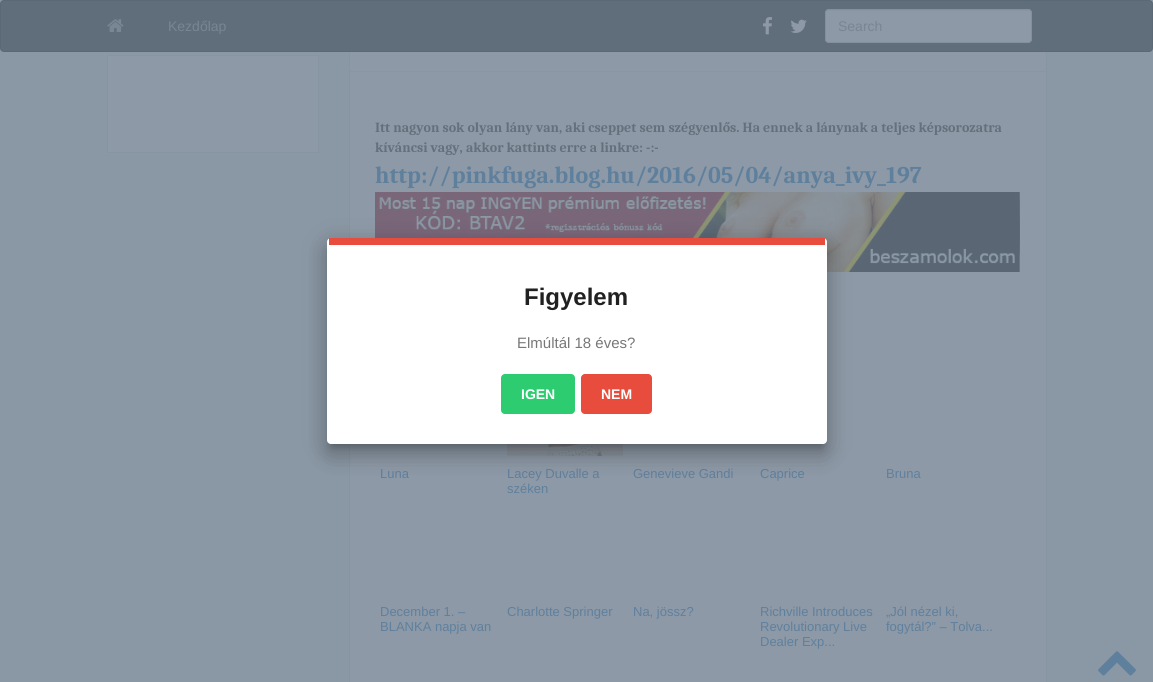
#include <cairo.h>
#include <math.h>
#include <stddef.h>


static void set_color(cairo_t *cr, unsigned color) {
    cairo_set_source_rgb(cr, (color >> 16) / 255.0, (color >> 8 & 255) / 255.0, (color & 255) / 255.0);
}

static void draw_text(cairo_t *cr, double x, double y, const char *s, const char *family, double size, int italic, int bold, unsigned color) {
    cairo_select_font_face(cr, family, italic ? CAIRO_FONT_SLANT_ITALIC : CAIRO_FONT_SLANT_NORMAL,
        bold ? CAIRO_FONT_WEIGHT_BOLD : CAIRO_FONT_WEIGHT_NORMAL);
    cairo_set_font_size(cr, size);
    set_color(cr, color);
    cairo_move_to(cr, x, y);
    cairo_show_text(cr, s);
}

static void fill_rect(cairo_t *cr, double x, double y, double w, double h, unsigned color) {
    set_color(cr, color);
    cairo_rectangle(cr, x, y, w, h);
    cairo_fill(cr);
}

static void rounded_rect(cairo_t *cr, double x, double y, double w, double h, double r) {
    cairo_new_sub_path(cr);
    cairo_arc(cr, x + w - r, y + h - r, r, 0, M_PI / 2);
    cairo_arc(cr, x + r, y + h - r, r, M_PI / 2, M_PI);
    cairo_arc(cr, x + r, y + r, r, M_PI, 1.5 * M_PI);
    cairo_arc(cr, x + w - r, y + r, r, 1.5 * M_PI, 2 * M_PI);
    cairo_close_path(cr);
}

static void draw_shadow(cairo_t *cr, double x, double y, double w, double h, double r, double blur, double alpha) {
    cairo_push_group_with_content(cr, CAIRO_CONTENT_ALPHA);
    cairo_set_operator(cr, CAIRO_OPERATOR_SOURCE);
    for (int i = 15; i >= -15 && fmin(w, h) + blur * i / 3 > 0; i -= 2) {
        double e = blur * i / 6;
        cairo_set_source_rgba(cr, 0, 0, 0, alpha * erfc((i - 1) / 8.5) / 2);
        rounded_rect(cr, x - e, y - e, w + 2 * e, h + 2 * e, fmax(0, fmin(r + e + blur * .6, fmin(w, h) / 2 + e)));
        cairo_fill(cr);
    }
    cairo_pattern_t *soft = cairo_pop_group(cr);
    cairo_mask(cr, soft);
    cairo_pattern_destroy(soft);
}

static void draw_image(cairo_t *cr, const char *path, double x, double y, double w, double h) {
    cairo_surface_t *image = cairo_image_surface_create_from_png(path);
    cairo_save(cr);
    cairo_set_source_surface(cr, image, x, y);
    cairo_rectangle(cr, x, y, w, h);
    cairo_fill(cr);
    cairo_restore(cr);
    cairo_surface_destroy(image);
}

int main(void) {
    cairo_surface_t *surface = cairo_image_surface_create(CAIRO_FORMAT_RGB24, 1153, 682);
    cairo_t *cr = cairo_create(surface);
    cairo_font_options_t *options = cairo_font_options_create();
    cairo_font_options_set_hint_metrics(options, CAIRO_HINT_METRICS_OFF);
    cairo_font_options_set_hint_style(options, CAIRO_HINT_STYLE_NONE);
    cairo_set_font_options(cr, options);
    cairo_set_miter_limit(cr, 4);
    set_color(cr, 0x8A97A4);
    cairo_paint(cr);
    fill_rect(cr, 350, 52, 696, 630, 0x8D99A6);
    cairo_rectangle(cr, 349.5, 23.5, 697, 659);
    set_color(cr, 0x8794A1);
    cairo_set_line_width(cr, 1);
    cairo_stroke(cr);
    set_color(cr, 0x606D7A);
    rounded_rect(cr, 0.5, 0.5, 1152, 51, 3.5);
    cairo_fill_preserve(cr);
    set_color(cr, 0x5B6875);
    cairo_stroke(cr);
    draw_image(cr, "assets/img1.png", 107, 19, 17, 13);
    draw_text(cr, 168, 31, "Kezdőlap", "Liberation Sans", 14, 0, 0, 0x788592);
    draw_image(cr, "assets/img2.png", 763, 17, 9, 18);
    draw_image(cr, "assets/img3.png", 790, 19, 17, 14);
    set_color(cr, 0x8D99A6);
    rounded_rect(cr, 825, 9, 207, 34, 4);
    cairo_fill(cr);
    set_color(cr, 0x8996A2);
    cairo_new_path(cr);
    cairo_move_to(cr, 829, 11);
    cairo_line_to(cr, 1028, 11);
    cairo_curve_to(cr, 1030, 11, 1031, 12, 1031, 14);
    cairo_curve_to(cr, 1031, 12, 1030, 10, 1028, 10);
    cairo_line_to(cr, 829, 10);
    cairo_curve_to(cr, 827, 10, 826, 12, 826, 14);
    cairo_curve_to(cr, 826, 12, 827, 11, 829, 11);
    cairo_close_path(cr);
    cairo_fill(cr);
    rounded_rect(cr, 825.5, 9.5, 206, 33, 3.5);
    set_color(cr, 0x828F9C);
    cairo_stroke(cr);
    draw_text(cr, 838, 31, "Search", "Liberation Sans", 14, 0, 0, 0x788592);
    set_color(cr, 0x8D99A6);
    cairo_rectangle(cr, 107.5, 55.5, 211, 97);
    cairo_fill_preserve(cr);
    set_color(cr, 0x8794A1);
    cairo_stroke(cr);
    fill_rect(cr, 350, 71, 696, 1, 0x8996A3);
    draw_text(cr, 375, 132, "Itt nagyon sok olyan lány van, aki cseppet sem szégyenlős. Ha ennek a lánynak a teljes képsorozatra", "Caladea", 14, 0, 1, 0x64717D);
    draw_text(cr, 375, 152, "kíváncsi vagy, akkor kattints erre a linkre: -:-", "Caladea", 14, 0, 1, 0x64717D);
    draw_text(cr, 375, 183, "http://pinkfuga.blog.hu/2016/05/04/anya_ivy_197", "Caladea", 24, 0, 1, 0x5F809D);
    draw_image(cr, "assets/img4.png", 375, 192, 645, 80);
    draw_text(cr, 380, 478, "Luna", "Liberation Sans", 13, 0, 0, 0x5F809D);
    draw_image(cr, "assets/img5.png", 507, 444, 116, 12);
    draw_text(cr, 507, 478, "Lacey Duvalle a", "Liberation Sans", 13, 0, 0, 0x5F809D);
    draw_text(cr, 507, 493, "széken", "Liberation Sans", 13, 0, 0, 0x5F809D);
    draw_text(cr, 633, 478, "Genevieve Gandi", "Liberation Sans", 13, 0, 0, 0x5F809D);
    draw_text(cr, 760, 478, "Caprice", "Liberation Sans", 13, 0, 0, 0x5F809D);
    draw_text(cr, 886, 478, "Bruna", "Liberation Sans", 13, 0, 0, 0x5F809D);
    draw_text(cr, 380, 616, "December 1. –", "Liberation Sans", 13, 0, 0, 0x5F809D);
    draw_text(cr, 380, 631, "BLANKA napja van", "Liberation Sans", 13, 0, 0, 0x5F809D);
    draw_text(cr, 507, 616, "Charlotte Springer", "Liberation Sans", 13, 0, 0, 0x5F809D);
    draw_text(cr, 633, 616, "Na, jössz?", "Liberation Sans", 13, 0, 0, 0x5F809D);
    draw_text(cr, 760, 616, "Richville Introduces", "Liberation Sans", 13, 0, 0, 0x5F809D);
    draw_text(cr, 760, 631, "Revolutionary Live", "Liberation Sans", 13, 0, 0, 0x5F809D);
    draw_text(cr, 760, 646, "Dealer Exp...", "Liberation Sans", 13, 0, 0, 0x5F809D);
    draw_text(cr, 886, 616, "„Jól nézel ki,", "Liberation Sans", 13, 0, 0, 0x5F809D);
    draw_text(cr, 886, 631, "fogytál?” – Tolva...", "Liberation Sans", 13, 0, 0, 0x5F809D);
    set_color(cr, 0x000000);
    draw_shadow(cr, 323, 239, 508, 214, 8, 12, 0.12);
    draw_shadow(cr, 325, 249, 504, 210, 6, 9.5, 0.14);
    draw_shadow(cr, 331, 249, 492, 198, 0, 4, 0.2);
    set_color(cr, 0xFFFFFF);
    rounded_rect(cr, 327, 238, 500, 206, 4);
    cairo_fill(cr);
    fill_rect(cr, 329, 238, 496, 7, 0xE74C3C);
    draw_text(cr, 524, 305, "Figyelem", "Liberation Sans", 24, 0, 1, 0x212121);
    draw_text(cr, 517, 348, "Elmúltál 18 éves?", "Liberation Sans", 15, 0, 0, 0x777777);
    set_color(cr, 0x2ECC71);
    rounded_rect(cr, 501, 374, 74, 40, 4);
    cairo_fill(cr);
    draw_text(cr, 521, 399, "IGEN", "Liberation Sans", 14, 0, 1, 0xFFFFFF);
    set_color(cr, 0xE74C3C);
    rounded_rect(cr, 581, 374, 71, 40, 4);
    cairo_fill(cr);
    draw_text(cr, 601, 399, "NEM", "Liberation Sans", 14, 0, 1, 0xFFFFFF);
    draw_image(cr, "assets/img6.png", 1098, 651, 38, 25);
    cairo_surface_write_to_png(surface, "output.png");
    cairo_font_options_destroy(options);
    cairo_destroy(cr);
    cairo_surface_destroy(surface);
    return 0;
}
